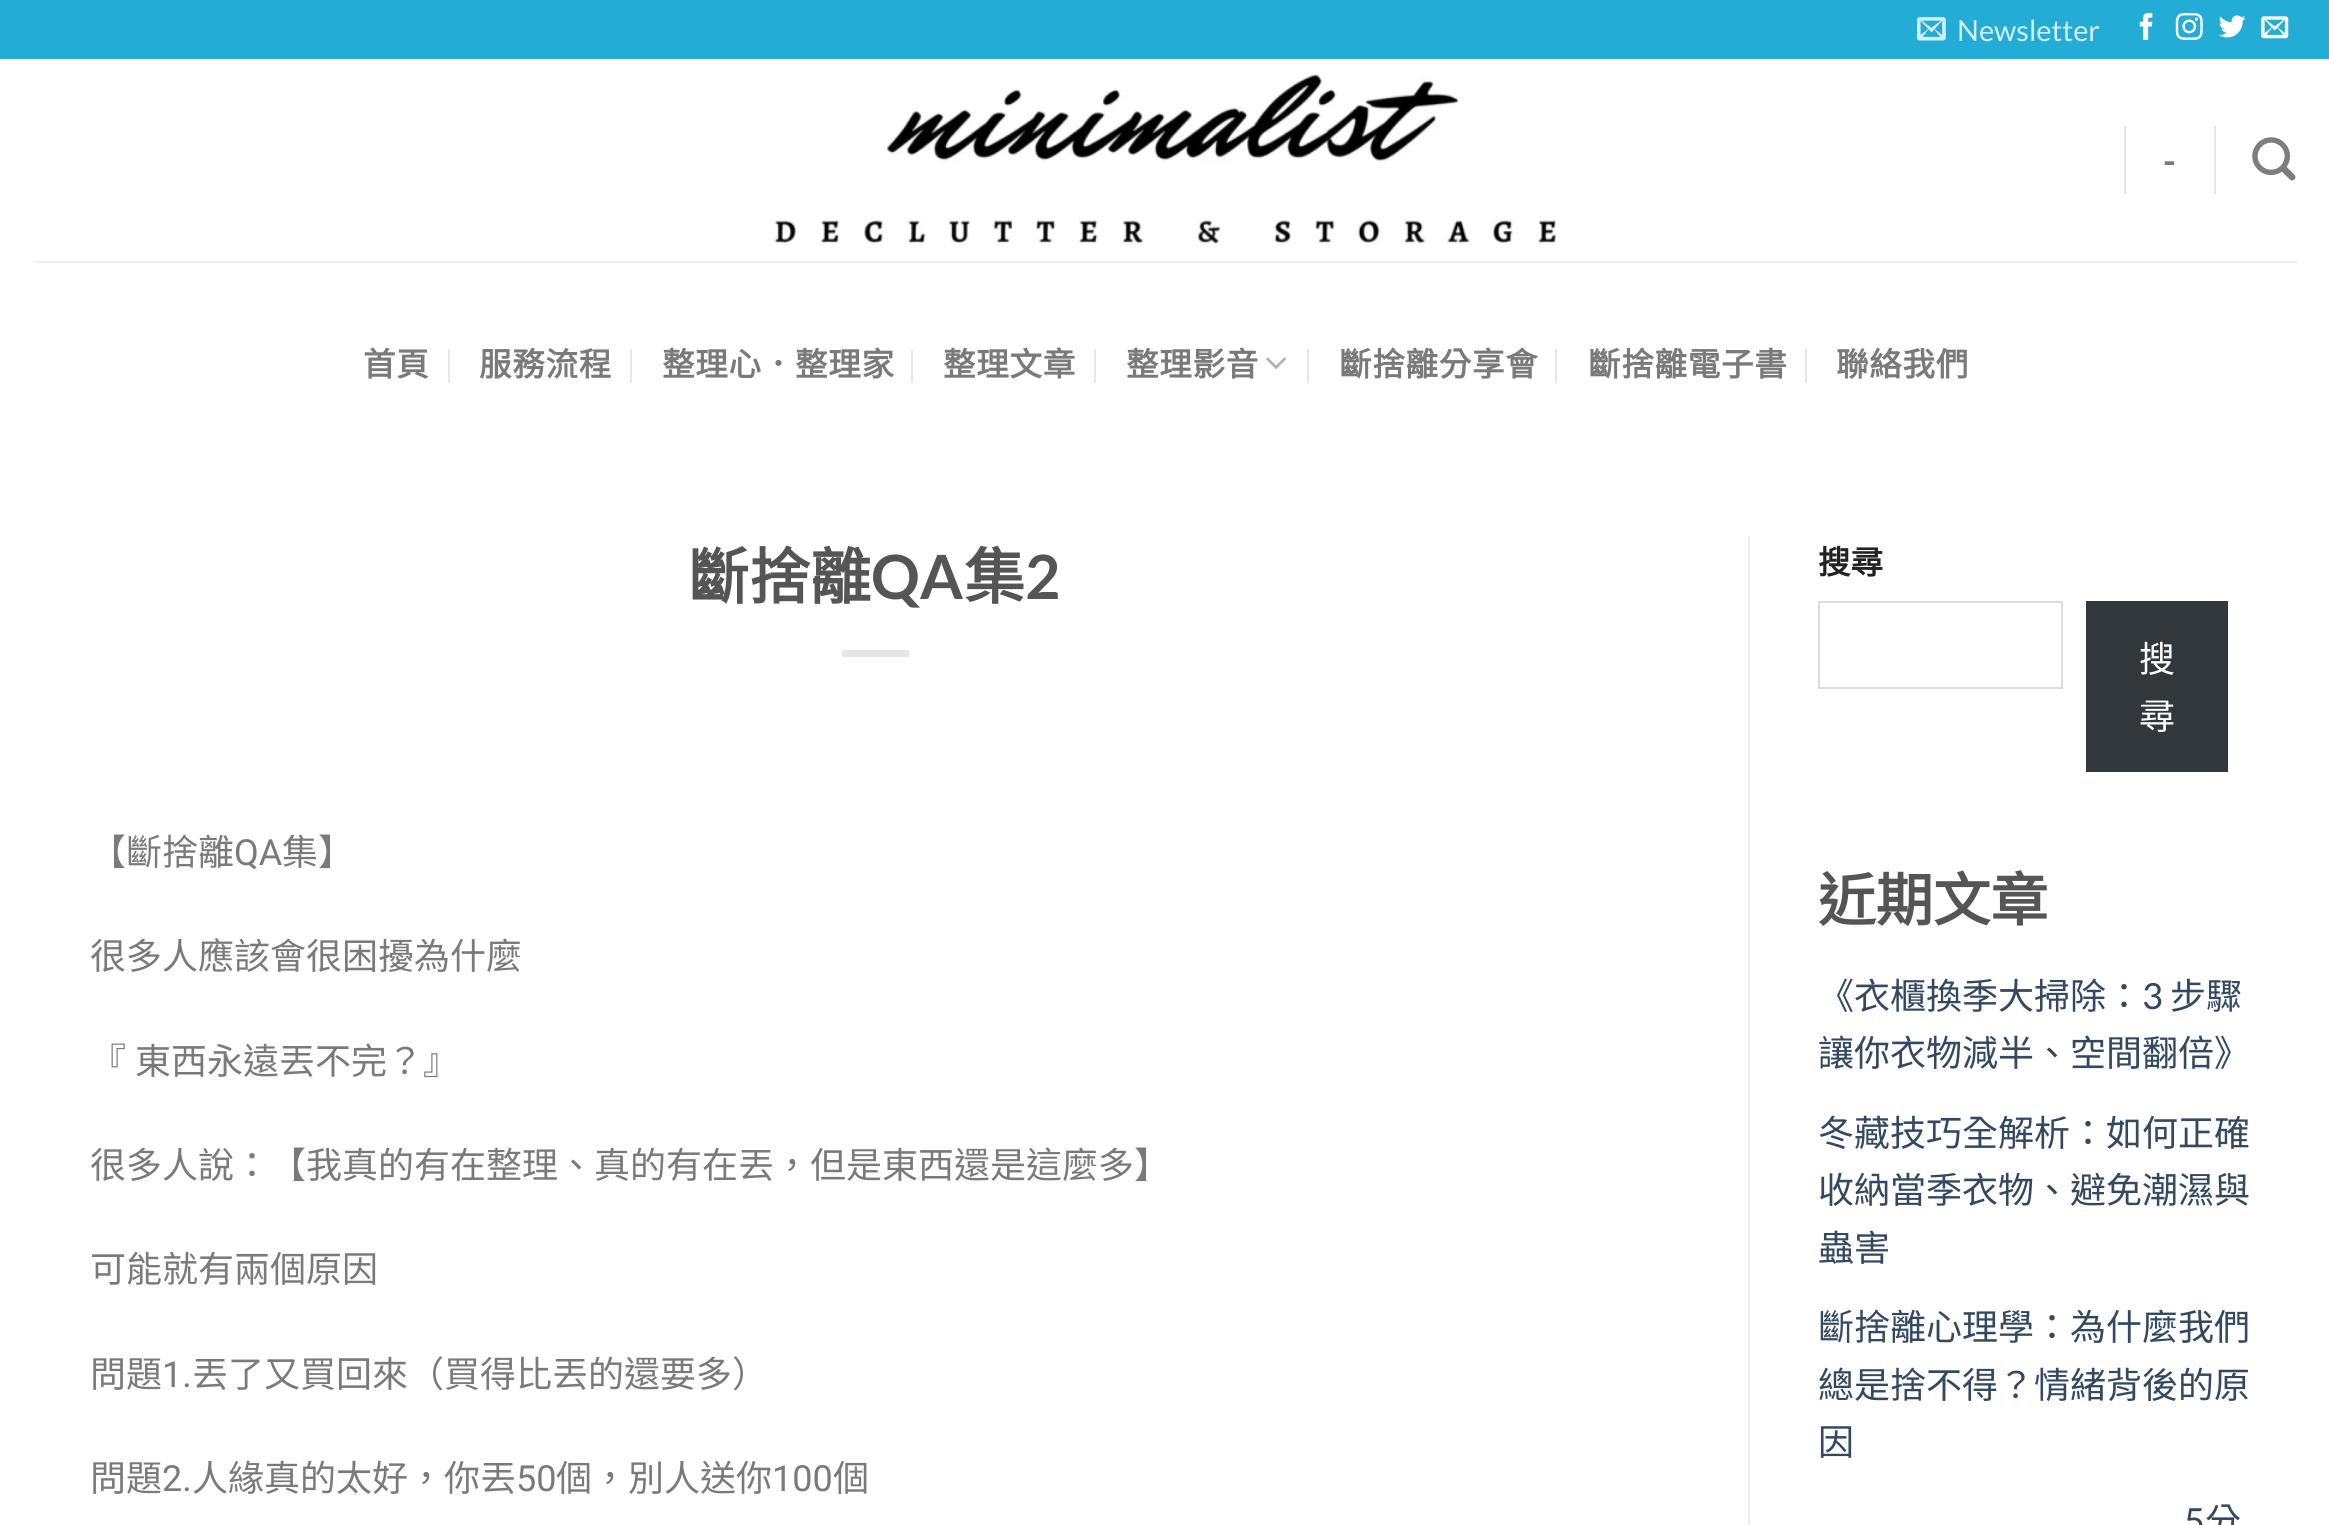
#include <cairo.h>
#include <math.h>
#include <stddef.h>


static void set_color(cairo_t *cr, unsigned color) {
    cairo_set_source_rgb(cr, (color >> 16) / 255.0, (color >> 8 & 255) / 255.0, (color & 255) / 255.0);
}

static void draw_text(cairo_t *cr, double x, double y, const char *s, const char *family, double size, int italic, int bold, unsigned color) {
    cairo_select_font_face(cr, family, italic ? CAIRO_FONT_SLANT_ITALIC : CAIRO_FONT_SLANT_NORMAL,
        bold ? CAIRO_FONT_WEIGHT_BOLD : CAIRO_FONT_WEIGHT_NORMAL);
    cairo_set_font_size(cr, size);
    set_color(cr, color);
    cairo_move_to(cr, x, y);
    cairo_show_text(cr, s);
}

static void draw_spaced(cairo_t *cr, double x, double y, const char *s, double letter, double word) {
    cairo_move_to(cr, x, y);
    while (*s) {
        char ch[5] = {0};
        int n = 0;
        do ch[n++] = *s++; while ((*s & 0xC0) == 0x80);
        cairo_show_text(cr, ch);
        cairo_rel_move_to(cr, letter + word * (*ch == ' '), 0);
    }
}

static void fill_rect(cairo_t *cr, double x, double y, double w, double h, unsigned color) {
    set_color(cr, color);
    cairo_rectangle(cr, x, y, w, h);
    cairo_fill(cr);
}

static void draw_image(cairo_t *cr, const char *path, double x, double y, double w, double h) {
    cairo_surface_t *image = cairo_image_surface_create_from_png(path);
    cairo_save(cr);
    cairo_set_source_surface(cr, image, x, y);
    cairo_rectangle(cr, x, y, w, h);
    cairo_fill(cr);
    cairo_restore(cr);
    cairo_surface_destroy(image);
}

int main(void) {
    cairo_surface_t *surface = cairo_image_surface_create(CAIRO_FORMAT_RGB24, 2329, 1525);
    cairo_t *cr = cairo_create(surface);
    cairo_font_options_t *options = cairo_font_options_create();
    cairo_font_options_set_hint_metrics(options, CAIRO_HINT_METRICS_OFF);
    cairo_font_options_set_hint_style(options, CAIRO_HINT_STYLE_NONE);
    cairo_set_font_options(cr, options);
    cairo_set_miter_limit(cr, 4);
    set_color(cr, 0xFFFFFF);
    cairo_paint(cr);
    fill_rect(cr, 0, 0, 2329, 59, 0x22ACD6);
    draw_image(cr, "assets/img1.png", 1917, 17, 29, 24);
    draw_text(cr, 1957, 41, "Newsletter", "Lato", 29, 0, 0, 0xD3EEF7);
    draw_image(cr, "assets/img2.png", 2139, 12, 14, 28);
    draw_image(cr, "assets/img3.png", 2175, 12, 28, 28);
    draw_image(cr, "assets/img4.png", 2218, 15, 28, 23);
    draw_image(cr, "assets/img5.png", 2261, 16, 28, 23);
    draw_image(cr, "assets/img6.png", 772, 73, 785, 172);
    fill_rect(cr, 2124, 126, 2, 68, 0xE6E6E6);
    cairo_select_font_face(cr, "Lato", CAIRO_FONT_SLANT_NORMAL, CAIRO_FONT_WEIGHT_BOLD);
    cairo_set_font_size(cr, 36);
    set_color(cr, 0x7A7A7A);
    draw_spaced(cr, 2163, 174, "-", 1, 0);
    fill_rect(cr, 2214, 126, 2, 68, 0xE6E6E6);
    draw_image(cr, "assets/img7.png", 2252, 137, 44, 44);
    fill_rect(cr, 34, 261, 2263, 2, 0xF1F1F1);
    cairo_select_font_face(cr, "Noto Sans CJK TC", CAIRO_FONT_SLANT_NORMAL, CAIRO_FONT_WEIGHT_BOLD);
    cairo_set_font_size(cr, 32.5);
    set_color(cr, 0x7A7A7A);
    draw_spaced(cr, 363, 376, "首頁", 0.75, 0);
    fill_rect(cr, 448, 349, 2, 34, 0xE6E6E6);
    set_color(cr, 0x7A7A7A);
    draw_spaced(cr, 479, 376, "服務流程", 0.75, 0);
    fill_rect(cr, 630, 349, 2, 34, 0xE6E6E6);
    set_color(cr, 0x7A7A7A);
    draw_spaced(cr, 662, 376, "整理心．整理家", 0.75, 0);
    fill_rect(cr, 911, 349, 2, 34, 0xE6E6E6);
    set_color(cr, 0x7A7A7A);
    draw_spaced(cr, 943, 376, "整理文章", 0.75, 0);
    fill_rect(cr, 1094, 349, 2, 34, 0xE6E6E6);
    set_color(cr, 0x7A7A7A);
    draw_spaced(cr, 1126, 376, "整理影音", 0.75, 0);
    draw_image(cr, "assets/img8.png", 1266, 357, 20, 12);
    fill_rect(cr, 1307, 349, 2, 34, 0xE6E6E6);
    set_color(cr, 0x7A7A7A);
    draw_spaced(cr, 1339, 376, "斷捨離分享會", 0.75, 0);
    fill_rect(cr, 1555, 349, 2, 34, 0xE6E6E6);
    set_color(cr, 0x7A7A7A);
    draw_spaced(cr, 1588, 376, "斷捨離電子書", 0.75, 0);
    fill_rect(cr, 1805, 349, 2, 34, 0xE6E6E6);
    set_color(cr, 0x7A7A7A);
    draw_spaced(cr, 1836, 376, "聯絡我們", 0.75, 0);
    draw_text(cr, 688, 599, "斷捨離", "Noto Sans CJK TC", 61, 0, 1, 0x555555);
    draw_text(cr, 871, 599, "QA", "Lato", 61, 0, 1, 0x555555);
    draw_text(cr, 964, 599, "集", "Noto Sans CJK TC", 61, 0, 1, 0x555555);
    draw_text(cr, 1025, 599, "2", "Lato", 61, 0, 1, 0x555555);
    fill_rect(cr, 842, 650, 67, 7, 0xE6E6E6);
    draw_text(cr, 90, 865, "【斷捨離", "Noto Sans CJK TC", 36, 0, 0, 0x7A7A7A);
    draw_text(cr, 234, 865, "QA", "Roboto", 36, 0, 0, 0x7A7A7A);
    draw_text(cr, 282, 865, "集】", "Noto Sans CJK TC", 36, 0, 0, 0x7A7A7A);
    draw_text(cr, 90, 969, "很多人應該會很困擾為什麼", "Noto Sans CJK TC", 36, 0, 0, 0x7A7A7A);
    draw_spaced(cr, 90, 1074, "『 東西永遠丟不完？』", 0, 1);
    draw_text(cr, 90, 1178, "很多人說：【我真的有在整理、真的有在丟，但是東西還是這麼多】", "Noto Sans CJK TC", 36, 0, 0, 0x7A7A7A);
    draw_text(cr, 90, 1282, "可能就有兩個原因", "Noto Sans CJK TC", 36, 0, 0, 0x7A7A7A);
    draw_text(cr, 90, 1387, "問題", "Noto Sans CJK TC", 36, 0, 0, 0x7A7A7A);
    draw_text(cr, 162, 1387, "1.", "Roboto", 36, 0, 0, 0x7A7A7A);
    draw_text(cr, 192, 1387, "丟了又買回來（買得比丟的還要多）", "Noto Sans CJK TC", 36, 0, 0, 0x7A7A7A);
    draw_text(cr, 90, 1491, "問題", "Noto Sans CJK TC", 36, 0, 0, 0x7A7A7A);
    draw_text(cr, 162, 1491, "2.", "Roboto", 36, 0, 0, 0x7A7A7A);
    draw_text(cr, 192, 1491, "人緣真的太好，你丟", "Noto Sans CJK TC", 36, 0, 0, 0x7A7A7A);
    draw_text(cr, 516, 1491, "50", "Roboto", 36, 0, 0, 0x7A7A7A);
    draw_text(cr, 556, 1491, "個，別人送你", "Noto Sans CJK TC", 36, 0, 0, 0x7A7A7A);
    draw_text(cr, 772, 1491, "100", "Roboto", 36, 0, 0, 0x7A7A7A);
    draw_text(cr, 833, 1491, "個", "Noto Sans CJK TC", 36, 0, 0, 0x7A7A7A);
    fill_rect(cr, 1748, 536, 2, 989, 0xECECEC);
    draw_text(cr, 1818, 574, "搜尋", "Noto Sans CJK TC", 32.5, 0, 1, 0x222222);
    cairo_rectangle(cr, 1819, 602, 243, 86);
    set_color(cr, 0xDDDDDD);
    cairo_stroke(cr);
    fill_rect(cr, 2086, 601, 142, 171, 0x32373C);
    draw_text(cr, 2139, 672, "搜", "Noto Sans CJK TC", 36, 0, 0, 0xFFFFFF);
    draw_text(cr, 2139, 729, "尋", "Noto Sans CJK TC", 36, 0, 0, 0xFFFFFF);
    draw_text(cr, 1818, 921, "近期文章", "Noto Sans CJK TC", 57.5, 0, 1, 0x555555);
    draw_text(cr, 1818, 1009, "《衣櫃換季大掃除：", "Noto Sans CJK TC", 36, 0, 0, 0x334862);
    draw_text(cr, 2142, 1009, "3", "Lato", 36, 0, 0, 0x334862);
    draw_text(cr, 2170, 1009, "步驟", "Noto Sans CJK TC", 36, 0, 0, 0x334862);
    draw_text(cr, 1818, 1066, "讓你衣物減半、空間翻倍》", "Noto Sans CJK TC", 36, 0, 0, 0x334862);
    draw_text(cr, 1818, 1146, "冬藏技巧全解析：如何正確", "Noto Sans CJK TC", 36, 0, 0, 0x334862);
    draw_text(cr, 1818, 1203, "收納當季衣物、避免潮濕與", "Noto Sans CJK TC", 36, 0, 0, 0x334862);
    draw_text(cr, 1818, 1261, "蟲害", "Noto Sans CJK TC", 36, 0, 0, 0x334862);
    draw_text(cr, 1818, 1340, "斷捨離心理學：為什麼我們", "Noto Sans CJK TC", 36, 0, 0, 0x334862);
    draw_text(cr, 1818, 1398, "總是捨不得？情緒背後的原", "Noto Sans CJK TC", 36, 0, 0, 0x334862);
    draw_text(cr, 1818, 1455, "因", "Noto Sans CJK TC", 36, 0, 0, 0x334862);
    draw_text(cr, 2184, 1534, "5", "Lato", 36, 0, 0, 0x334862);
    draw_text(cr, 2205, 1534, "分", "Noto Sans CJK TC", 36, 0, 0, 0x334862);
    cairo_surface_write_to_png(surface, "output.png");
    cairo_font_options_destroy(options);
    cairo_destroy(cr);
    cairo_surface_destroy(surface);
    return 0;
}
